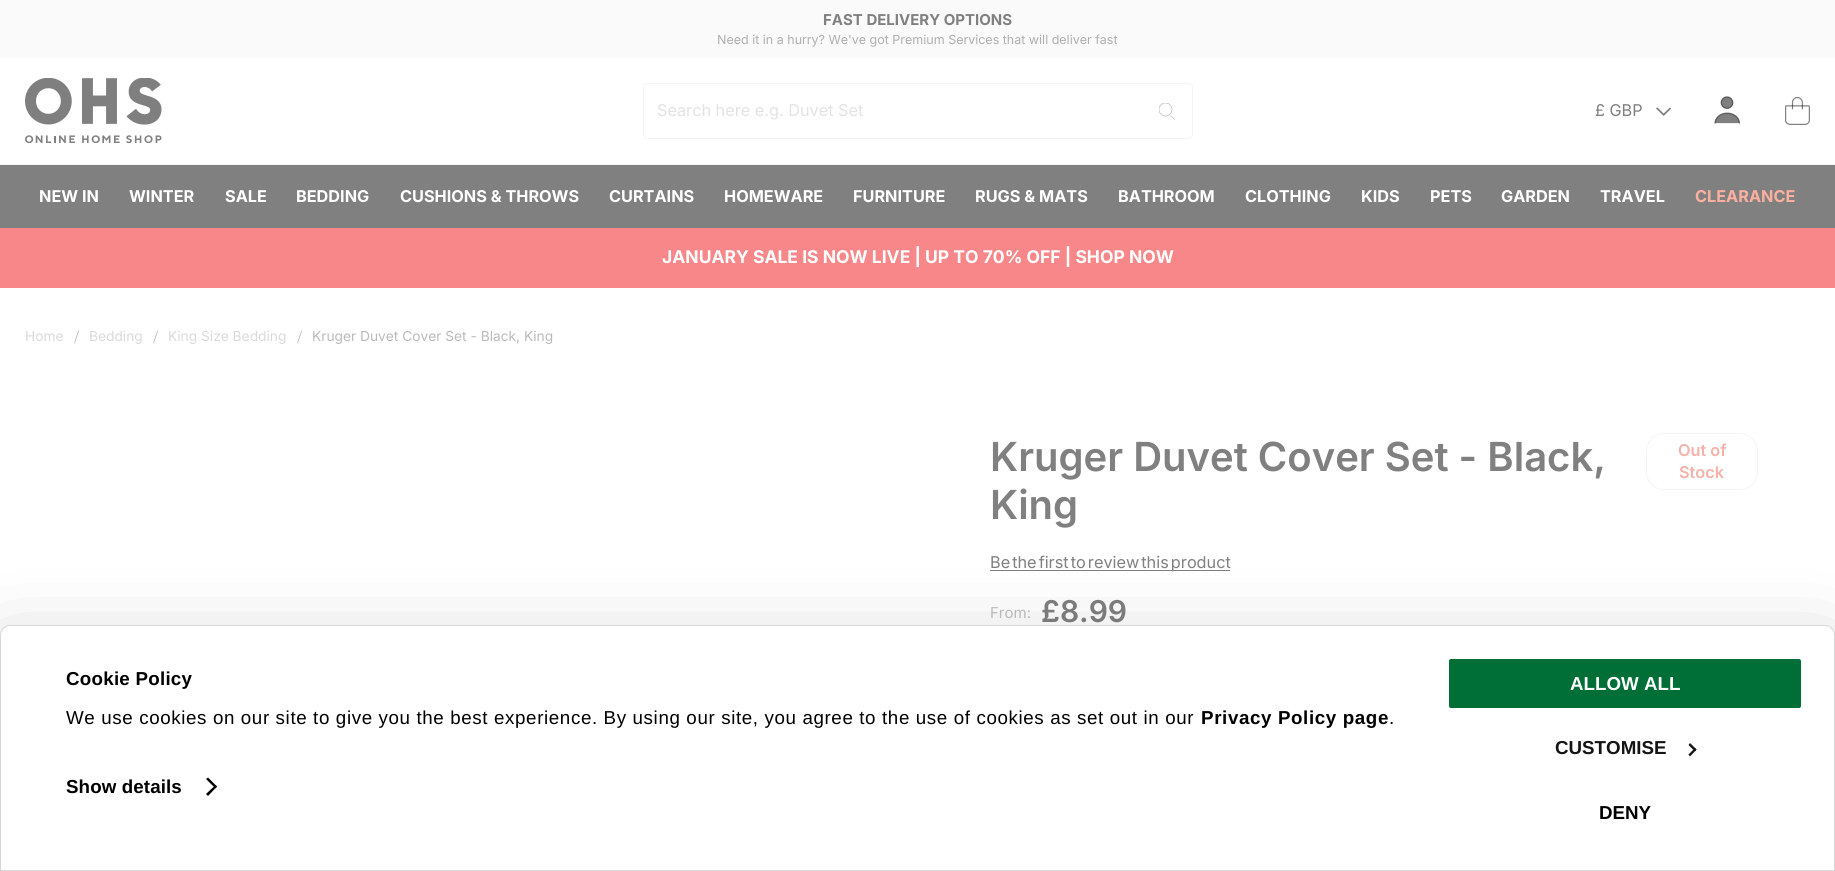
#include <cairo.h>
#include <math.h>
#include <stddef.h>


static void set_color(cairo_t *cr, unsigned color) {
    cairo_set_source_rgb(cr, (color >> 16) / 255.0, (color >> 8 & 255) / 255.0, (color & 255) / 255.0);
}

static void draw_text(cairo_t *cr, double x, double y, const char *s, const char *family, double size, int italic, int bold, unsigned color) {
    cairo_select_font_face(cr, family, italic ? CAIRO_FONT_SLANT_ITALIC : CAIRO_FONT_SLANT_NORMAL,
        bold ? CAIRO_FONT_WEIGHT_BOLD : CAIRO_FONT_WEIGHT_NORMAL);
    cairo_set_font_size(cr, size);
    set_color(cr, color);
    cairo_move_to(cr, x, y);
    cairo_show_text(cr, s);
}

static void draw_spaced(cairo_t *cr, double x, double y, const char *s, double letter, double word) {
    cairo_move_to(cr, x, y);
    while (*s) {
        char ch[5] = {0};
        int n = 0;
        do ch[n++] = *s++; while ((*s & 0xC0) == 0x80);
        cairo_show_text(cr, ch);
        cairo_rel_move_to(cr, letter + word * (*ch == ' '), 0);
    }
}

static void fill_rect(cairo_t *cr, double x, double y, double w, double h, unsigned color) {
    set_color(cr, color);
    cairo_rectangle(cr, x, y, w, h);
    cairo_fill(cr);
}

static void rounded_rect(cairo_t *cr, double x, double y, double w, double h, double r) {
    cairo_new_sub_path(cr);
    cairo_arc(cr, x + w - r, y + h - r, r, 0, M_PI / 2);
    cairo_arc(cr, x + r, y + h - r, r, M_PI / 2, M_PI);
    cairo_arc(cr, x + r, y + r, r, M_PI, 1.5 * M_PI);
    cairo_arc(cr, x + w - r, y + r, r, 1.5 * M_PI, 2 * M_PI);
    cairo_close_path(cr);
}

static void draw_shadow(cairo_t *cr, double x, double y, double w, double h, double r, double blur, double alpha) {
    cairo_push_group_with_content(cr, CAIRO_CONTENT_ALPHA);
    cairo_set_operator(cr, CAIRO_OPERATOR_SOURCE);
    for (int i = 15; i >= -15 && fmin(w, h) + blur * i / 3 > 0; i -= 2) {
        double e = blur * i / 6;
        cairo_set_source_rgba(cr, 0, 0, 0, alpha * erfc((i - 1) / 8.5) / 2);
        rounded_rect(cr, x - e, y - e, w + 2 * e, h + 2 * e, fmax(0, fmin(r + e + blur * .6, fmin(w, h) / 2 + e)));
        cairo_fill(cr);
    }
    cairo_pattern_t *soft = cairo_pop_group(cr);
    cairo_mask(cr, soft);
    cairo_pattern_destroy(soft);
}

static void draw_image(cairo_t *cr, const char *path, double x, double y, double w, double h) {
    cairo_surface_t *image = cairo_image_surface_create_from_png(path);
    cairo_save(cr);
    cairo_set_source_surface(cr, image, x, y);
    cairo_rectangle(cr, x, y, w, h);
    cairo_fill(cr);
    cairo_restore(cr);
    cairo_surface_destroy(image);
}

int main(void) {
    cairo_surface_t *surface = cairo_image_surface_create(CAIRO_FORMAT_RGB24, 1835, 871);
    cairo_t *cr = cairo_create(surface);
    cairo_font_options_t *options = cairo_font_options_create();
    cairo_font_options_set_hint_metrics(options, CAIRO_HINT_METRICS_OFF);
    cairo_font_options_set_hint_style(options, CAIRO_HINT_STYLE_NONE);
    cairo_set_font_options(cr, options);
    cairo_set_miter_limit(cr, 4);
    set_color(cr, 0xFFFFFF);
    cairo_paint(cr);
    fill_rect(cr, 0, 0, 1835, 58, 0xFAFAFA);
    draw_text(cr, 823, 25, "FAST DELIVERY OPTIONS", "Inter", 15, 0, 1, 0x808080);
    draw_text(cr, 717, 44, "Need it in a hurry? We've got Premium Services that will deliver fast", "Inter", 12.5, 0, 0, 0xAFAFAF);
    rounded_rect(cr, 643.5, 83.5, 549, 55, 4.5);
    set_color(cr, 0xF4F4F4);
    cairo_set_line_width(cr, 1);
    cairo_stroke(cr);
    draw_text(cr, 657, 116, "Search here e.g. Duvet Set", "Inter", 16.25, 0, 0, 0xE4E3E2);
    draw_image(cr, "assets/img1.png", 1159, 103, 16, 17);
    fill_rect(cr, 0, 164, 1835, 1, 0xF4F4F4);
    draw_image(cr, "assets/img2.png", 25, 78, 137, 65);
    draw_text(cr, 1595, 116, "£ GBP", "Inter", 16.25, 0, 0, 0x808080);
    draw_image(cr, "assets/img3.png", 1656, 107, 15, 9);
    draw_image(cr, "assets/img4.png", 1714, 96, 26, 28);
    draw_image(cr, "assets/img5.png", 1785, 96, 25, 29);
    fill_rect(cr, 0, 165, 1835, 63, 0x808080);
    draw_text(cr, 39, 202, "NEW IN", "Inter", 16.25, 0, 1, 0xFFFFFF);
    draw_text(cr, 129, 202, "WINTER", "Inter", 16.25, 0, 1, 0xFFFFFF);
    draw_text(cr, 225, 202, "SALE", "Inter", 16.25, 0, 1, 0xFFFFFF);
    draw_text(cr, 296, 202, "BEDDING", "Inter", 16.25, 0, 1, 0xFFFFFF);
    draw_text(cr, 400, 202, "CUSHIONS & THROWS", "Inter", 16.25, 0, 1, 0xFFFFFF);
    draw_text(cr, 609, 202, "CURTAINS", "Inter", 16.25, 0, 1, 0xFFFFFF);
    draw_text(cr, 724, 202, "HOMEWARE", "Inter", 16.25, 0, 1, 0xFFFFFF);
    draw_text(cr, 853, 202, "FURNITURE", "Inter", 16.25, 0, 1, 0xFFFFFF);
    draw_text(cr, 975, 202, "RUGS & MATS", "Inter", 16.25, 0, 1, 0xFFFFFF);
    draw_text(cr, 1118, 202, "BATHROOM", "Inter", 16.25, 0, 1, 0xFFFFFF);
    draw_text(cr, 1245, 202, "CLOTHING", "Inter", 16.25, 0, 1, 0xFFFFFF);
    draw_text(cr, 1361, 202, "KIDS", "Inter", 16.25, 0, 1, 0xFFFFFF);
    draw_text(cr, 1430, 202, "PETS", "Inter", 16.25, 0, 1, 0xFFFFFF);
    draw_text(cr, 1501, 202, "GARDEN", "Inter", 16.25, 0, 1, 0xFFFFFF);
    draw_text(cr, 1600, 202, "TRAVEL", "Inter", 16.25, 0, 1, 0xFFFFFF);
    draw_text(cr, 1695, 202, "CLEARANCE", "Inter", 16.25, 0, 1, 0xFDB0A0);
    fill_rect(cr, 0, 228, 1835, 60, 0xF78788);
    draw_text(cr, 662, 263, "JANUARY SALE IS NOW LIVE | UP TO 70% OFF | SHOP NOW", "Inter", 17.5, 0, 1, 0xFFFFFF);
    draw_text(cr, 25, 341, "Home", "Inter", 13.75, 0, 0, 0xDADADA);
    draw_text(cr, 74, 343, "/", "Liberation Serif", 18.75, 0, 0, 0xBABABA);
    draw_text(cr, 89, 341, "Bedding", "Inter", 13.75, 0, 0, 0xDADADA);
    draw_text(cr, 153, 343, "/", "Liberation Serif", 18.75, 0, 0, 0xBABABA);
    draw_text(cr, 168, 341, "King Size Bedding", "Inter", 13.75, 0, 0, 0xDADADA);
    draw_text(cr, 297, 343, "/", "Liberation Serif", 18.75, 0, 0, 0xBABABA);
    draw_text(cr, 312, 341, "Kruger Duvet Cover Set - Black, King", "Inter", 13.75, 0, 0, 0xBABABA);
    draw_text(cr, 990, 471, "Kruger Duvet Cover Set - Black,", "Inter SemiBold", 40, 0, 0, 0x808080);
    draw_text(cr, 990, 519, "King", "Inter SemiBold", 40, 0, 0, 0x808080);
    rounded_rect(cr, 1646.5, 433.5, 111, 56, 17.5);
    set_color(cr, 0xF4F4F4);
    cairo_stroke(cr);
    draw_text(cr, 1678, 456, "Out of", "Inter SemiBold", 16.25, 0, 0, 0xF6B1A9);
    draw_text(cr, 1679, 478, "Stock", "Inter SemiBold", 16.25, 0, 0, 0xF6B1A9);
    fill_rect(cr, 990, 570, 240, 1, 0x808080);
    cairo_select_font_face(cr, "Inter", CAIRO_FONT_SLANT_NORMAL, CAIRO_FONT_WEIGHT_NORMAL);
    draw_spaced(cr, 990, 568, "Be the first to review this product", 0, -2.5);
    draw_text(cr, 990, 618, "From:", "Inter", 15, 0, 0, 0xC1C1C1);
    draw_text(cr, 1041, 622, "£8.99", "Inter SemiBold", 30, 0, 0, 0x808080);
    set_color(cr, 0x000000);
    draw_shadow(cr, 0, 663, 1835, 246, 10, 44, 0.3);
    set_color(cr, 0xFFFFFF);
    cairo_new_path(cr);
    cairo_move_to(cr, 10, 625.5);
    cairo_line_to(cr, 1825, 625.5);
    cairo_curve_to(cr, 1830, 625.5, 1834.5, 630, 1834.5, 635);
    cairo_line_to(cr, 1834.5, 870.5);
    cairo_line_to(cr, 0.5, 870.5);
    cairo_line_to(cr, 0.5, 635);
    cairo_curve_to(cr, 0.5, 630, 5, 625.5, 10, 625.5);
    cairo_close_path(cr);
    cairo_fill_preserve(cr);
    set_color(cr, 0xD8D8D8);
    cairo_stroke(cr);
    cairo_select_font_face(cr, "Liberation Sans", CAIRO_FONT_SLANT_NORMAL, CAIRO_FONT_WEIGHT_BOLD);
    cairo_set_font_size(cr, 18.75);
    set_color(cr, 0x000000);
    draw_spaced(cr, 66, 685, "Cookie Policy", 0.25, 0);
    cairo_select_font_face(cr, "Liberation Sans", CAIRO_FONT_SLANT_NORMAL, CAIRO_FONT_WEIGHT_NORMAL);
    draw_spaced(cr, 66, 724, "We use cookies on our site to give you the best experience. By using our site, you agree to the use of cookies as set out in our", 0.62, 0);
    cairo_select_font_face(cr, "Liberation Sans", CAIRO_FONT_SLANT_NORMAL, CAIRO_FONT_WEIGHT_BOLD);
    draw_spaced(cr, 1201, 724, "Privacy Policy page", 0.62, 0);
    cairo_select_font_face(cr, "Liberation Sans", CAIRO_FONT_SLANT_NORMAL, CAIRO_FONT_WEIGHT_NORMAL);
    draw_spaced(cr, 1389, 724, ".", 0.62, 0);
    cairo_select_font_face(cr, "Liberation Sans", CAIRO_FONT_SLANT_NORMAL, CAIRO_FONT_WEIGHT_BOLD);
    draw_spaced(cr, 66, 793, "Show details", 0.1, 0);
    cairo_new_path(cr);
    cairo_move_to(cr, 208, 777.5);
    cairo_line_to(cr, 217, 786.5);
    cairo_line_to(cr, 215.5, 788.5);
    cairo_line_to(cr, 206, 779);
    cairo_close_path(cr);
    cairo_fill(cr);
    cairo_new_path(cr);
    cairo_move_to(cr, 215.5, 785);
    cairo_line_to(cr, 217, 786.5);
    cairo_line_to(cr, 208, 796);
    cairo_line_to(cr, 206, 794);
    cairo_close_path(cr);
    cairo_fill(cr);
    set_color(cr, 0x006E37);
    rounded_rect(cr, 1447.5, 657.5, 355, 52, 3.5);
    cairo_fill_preserve(cr);
    set_color(cr, 0xFFFFFF);
    cairo_set_line_width(cr, 3);
    cairo_stroke(cr);
    draw_text(cr, 1570, 690, "ALLOW ALL", "Liberation Sans", 18.75, 0, 1, 0xFFFFFF);
    draw_text(cr, 1555, 754, "CUSTOMISE", "Liberation Sans", 18.75, 0, 1, 0x141414);
    cairo_new_path(cr);
    cairo_move_to(cr, 1690, 743);
    cairo_line_to(cr, 1696.5, 749.5);
    cairo_line_to(cr, 1695, 751.5);
    cairo_line_to(cr, 1688.5, 745);
    cairo_close_path(cr);
    cairo_fill(cr);
    cairo_new_path(cr);
    cairo_move_to(cr, 1695, 748);
    cairo_line_to(cr, 1696.5, 749.5);
    cairo_line_to(cr, 1690, 756.5);
    cairo_line_to(cr, 1688.5, 754.5);
    cairo_close_path(cr);
    cairo_fill(cr);
    draw_text(cr, 1599, 819, "DENY", "Liberation Sans", 18.75, 0, 1, 0x000000);
    cairo_surface_write_to_png(surface, "output.png");
    cairo_font_options_destroy(options);
    cairo_destroy(cr);
    cairo_surface_destroy(surface);
    return 0;
}
